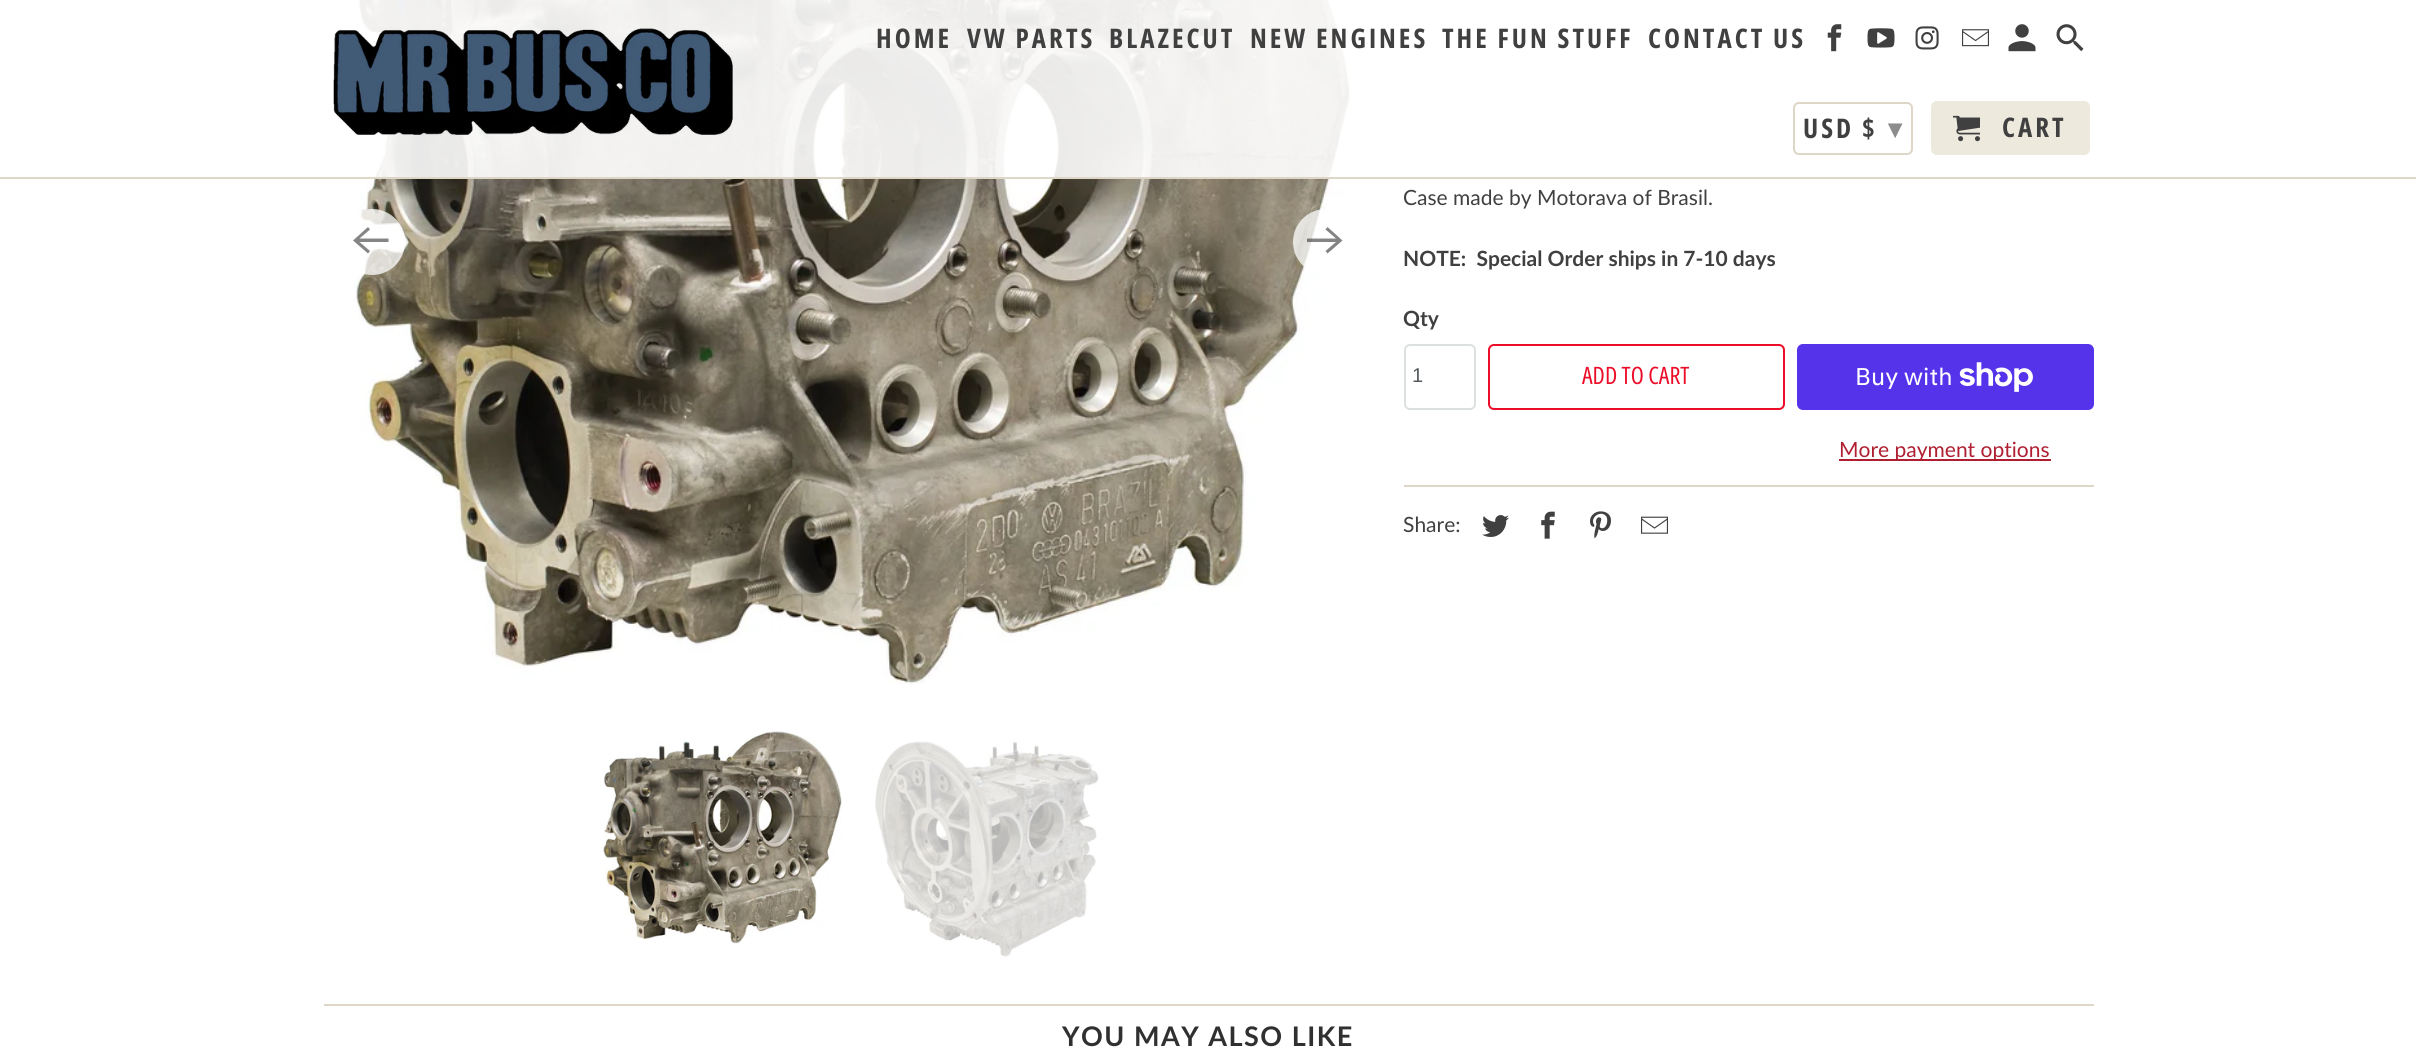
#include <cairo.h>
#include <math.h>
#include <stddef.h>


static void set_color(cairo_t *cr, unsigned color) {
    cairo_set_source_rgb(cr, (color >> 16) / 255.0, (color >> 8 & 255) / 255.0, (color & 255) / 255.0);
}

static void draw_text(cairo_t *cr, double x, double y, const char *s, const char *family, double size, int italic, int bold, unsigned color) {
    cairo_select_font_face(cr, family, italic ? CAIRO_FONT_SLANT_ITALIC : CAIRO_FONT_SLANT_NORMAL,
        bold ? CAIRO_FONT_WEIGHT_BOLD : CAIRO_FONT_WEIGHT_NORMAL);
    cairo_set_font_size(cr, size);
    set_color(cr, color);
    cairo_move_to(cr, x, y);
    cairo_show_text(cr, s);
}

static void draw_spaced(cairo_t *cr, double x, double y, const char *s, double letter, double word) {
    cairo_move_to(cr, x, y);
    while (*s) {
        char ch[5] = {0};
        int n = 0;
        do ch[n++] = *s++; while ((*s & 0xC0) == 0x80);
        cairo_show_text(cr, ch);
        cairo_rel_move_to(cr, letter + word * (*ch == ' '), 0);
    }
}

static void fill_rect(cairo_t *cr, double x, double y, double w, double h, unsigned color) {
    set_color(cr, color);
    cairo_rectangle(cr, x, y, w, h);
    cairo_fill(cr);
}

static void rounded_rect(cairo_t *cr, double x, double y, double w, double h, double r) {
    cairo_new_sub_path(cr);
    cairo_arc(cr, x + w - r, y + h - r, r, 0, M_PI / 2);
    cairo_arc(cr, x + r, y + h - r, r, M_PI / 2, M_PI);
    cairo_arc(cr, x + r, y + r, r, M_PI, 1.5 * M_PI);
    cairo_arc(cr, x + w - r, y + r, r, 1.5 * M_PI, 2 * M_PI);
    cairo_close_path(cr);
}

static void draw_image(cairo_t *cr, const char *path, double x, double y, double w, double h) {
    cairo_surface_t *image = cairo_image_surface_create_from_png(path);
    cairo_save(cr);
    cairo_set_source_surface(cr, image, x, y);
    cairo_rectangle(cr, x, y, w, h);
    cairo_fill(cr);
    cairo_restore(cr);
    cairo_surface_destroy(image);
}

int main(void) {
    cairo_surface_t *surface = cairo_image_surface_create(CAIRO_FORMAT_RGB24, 2416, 1048);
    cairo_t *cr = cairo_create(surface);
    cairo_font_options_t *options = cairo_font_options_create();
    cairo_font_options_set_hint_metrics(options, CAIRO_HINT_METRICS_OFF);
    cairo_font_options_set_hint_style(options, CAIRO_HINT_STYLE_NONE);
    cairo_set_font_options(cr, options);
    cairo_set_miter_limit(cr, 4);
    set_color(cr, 0xFFFFFF);
    cairo_paint(cr);
    draw_image(cr, "assets/img9.png", 354, 0, 998, 684);
    cairo_set_source_rgba(cr, 1, 1, 1, 0.9);
    cairo_rectangle(cr, 357, 0, 995, 177);
    cairo_fill(cr);
    fill_rect(cr, 0, 177, 2416, 2, 0xDED6C7);
    draw_image(cr, "assets/img1.png", 333, 28, 400, 107);
    cairo_select_font_face(cr, "Open Sans Condensed", CAIRO_FONT_SLANT_NORMAL, CAIRO_FONT_WEIGHT_BOLD);
    cairo_set_font_size(cr, 27);
    set_color(cr, 0x404040);
    draw_spaced(cr, 876, 48, "HOME", 3, 0);
    draw_spaced(cr, 967, 48, "VW PARTS", 3, 0);
    draw_spaced(cr, 1109, 48, "BLAZECUT", 3, 0);
    draw_spaced(cr, 1250, 48, "NEW ENGINES", 3, 0);
    draw_spaced(cr, 1442, 48, "THE FUN STUFF", 3, 0);
    draw_spaced(cr, 1648, 48, "CONTACT US", 3, 0);
    draw_image(cr, "assets/img2.png", 1827, 24, 15, 28);
    draw_image(cr, "assets/img3.png", 1867, 28, 28, 20);
    draw_image(cr, "assets/img4.png", 1915, 26, 24, 24);
    draw_image(cr, "assets/img5.png", 1962, 29, 27, 18);
    draw_image(cr, "assets/img6.png", 2008, 24, 28, 28);
    draw_image(cr, "assets/img7.png", 2056, 24, 28, 28);
    rounded_rect(cr, 1794, 103, 118, 51, 5);
    set_color(cr, 0xDED6C7);
    cairo_stroke(cr);
    set_color(cr, 0x404040);
    draw_spaced(cr, 1803, 138, "USD $", 3, 0);
    cairo_select_font_face(cr, "DejaVu Sans", CAIRO_FONT_SLANT_NORMAL, CAIRO_FONT_WEIGHT_BOLD);
    set_color(cr, 0x8C8C8C);
    draw_spaced(cr, 1888, 138, "▾", 3, 0);
    set_color(cr, 0xEDE9DD);
    rounded_rect(cr, 1931, 101, 159, 54, 6);
    cairo_fill(cr);
    draw_image(cr, "assets/img8.png", 1953, 115, 27, 27);
    cairo_select_font_face(cr, "Open Sans Condensed", CAIRO_FONT_SLANT_NORMAL, CAIRO_FONT_WEIGHT_BOLD);
    set_color(cr, 0x404040);
    draw_spaced(cr, 2002, 137, "CART", 3, 0);
    cairo_set_source_rgba(cr, 1, 1, 1, 0.75);
    cairo_new_path(cr);
    cairo_arc(cr, 372, 242, 33, 0, 2 * M_PI);
    cairo_fill(cr);
    set_color(cr, 0x858585);
    cairo_new_path(cr);
    cairo_move_to(cr, 388.5, 238.5);
    cairo_line_to(cr, 359.5, 238.5);
    cairo_line_to(cr, 370, 229.5);
    cairo_line_to(cr, 368, 227);
    cairo_line_to(cr, 353, 240.5);
    cairo_line_to(cr, 368, 253.5);
    cairo_line_to(cr, 370, 251);
    cairo_line_to(cr, 359.5, 242);
    cairo_line_to(cr, 388.5, 242);
    cairo_close_path(cr);
    cairo_fill(cr);
    cairo_set_source_rgba(cr, 1, 1, 1, 0.75);
    cairo_arc(cr, 1326, 242, 33, 0, 2 * M_PI);
    cairo_fill(cr);
    cairo_set_source_rgba(cr, 0.2, 0.2, 0.2, 0.6);
    cairo_new_path(cr);
    cairo_move_to(cr, 1307, 242);
    cairo_line_to(cr, 1336, 242);
    cairo_line_to(cr, 1325.5, 251);
    cairo_line_to(cr, 1327.5, 253.5);
    cairo_line_to(cr, 1342.5, 240.5);
    cairo_line_to(cr, 1327.5, 227);
    cairo_line_to(cr, 1325.5, 229.5);
    cairo_line_to(cr, 1336, 238.5);
    cairo_line_to(cr, 1307, 238.5);
    cairo_close_path(cr);
    cairo_fill(cr);
    draw_image(cr, "assets/img10.png", 602, 731, 240, 214);
    draw_image(cr, "assets/img11.png", 875, 741, 224, 216);
    draw_text(cr, 1403, 205, "Case made by Motorava of Brasil.", "Lato", 21, 0, 0, 0x404040);
    draw_text(cr, 1403, 266, "NOTE:  Special Order ships in 7-10 days", "Lato", 21, 0, 1, 0x404040);
    draw_text(cr, 1403, 326, "Qty", "Lato", 21, 0, 1, 0x404040);
    rounded_rect(cr, 1405, 345, 70, 64, 5);
    set_color(cr, 0xDCE0E0);
    cairo_stroke(cr);
    draw_text(cr, 1412, 382, "1", "Liberation Sans", 20, 0, 0, 0x565A5C);
    rounded_rect(cr, 1489, 345, 295, 64, 5);
    set_color(cr, 0xEC0D29);
    cairo_stroke(cr);
    draw_text(cr, 1582, 384, "ADD TO CART", "Open Sans Condensed", 24, 0, 0, 0xEC0D29);
    set_color(cr, 0x5433EB);
    rounded_rect(cr, 1797, 344, 297, 66, 6);
    cairo_fill(cr);
    draw_text(cr, 1855, 385, "Buy with", "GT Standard", 24, 0, 0, 0xFFFFFF);
    draw_image(cr, "assets/img12.png", 1959, 362, 74, 30);
    fill_rect(cr, 1839, 459, 212, 2, 0xAF1F31);
    draw_text(cr, 1839, 457, "More payment options", "Lato", 21, 0, 0, 0xAF1F31);
    fill_rect(cr, 1404, 485, 690, 2, 0xDED6C7);
    draw_text(cr, 1403, 532, "Share:", "Lato", 21, 0, 0, 0x404040);
    draw_image(cr, "assets/img13.png", 1482, 515, 27, 22);
    draw_image(cr, "assets/img14.png", 1541, 511, 14, 28);
    draw_image(cr, "assets/img15.png", 1590, 511, 21, 28);
    draw_image(cr, "assets/img16.png", 1641, 516, 27, 18);
    fill_rect(cr, 324, 1004, 1770, 2, 0xDED6C7);
    cairo_select_font_face(cr, "Lato", CAIRO_FONT_SLANT_NORMAL, CAIRO_FONT_WEIGHT_BOLD);
    cairo_set_font_size(cr, 27);
    set_color(cr, 0x303030);
    draw_spaced(cr, 1062, 1046, "YOU MAY ALSO LIKE", 1.5, 0);
    cairo_surface_write_to_png(surface, "output.png");
    cairo_font_options_destroy(options);
    cairo_destroy(cr);
    cairo_surface_destroy(surface);
    return 0;
}
